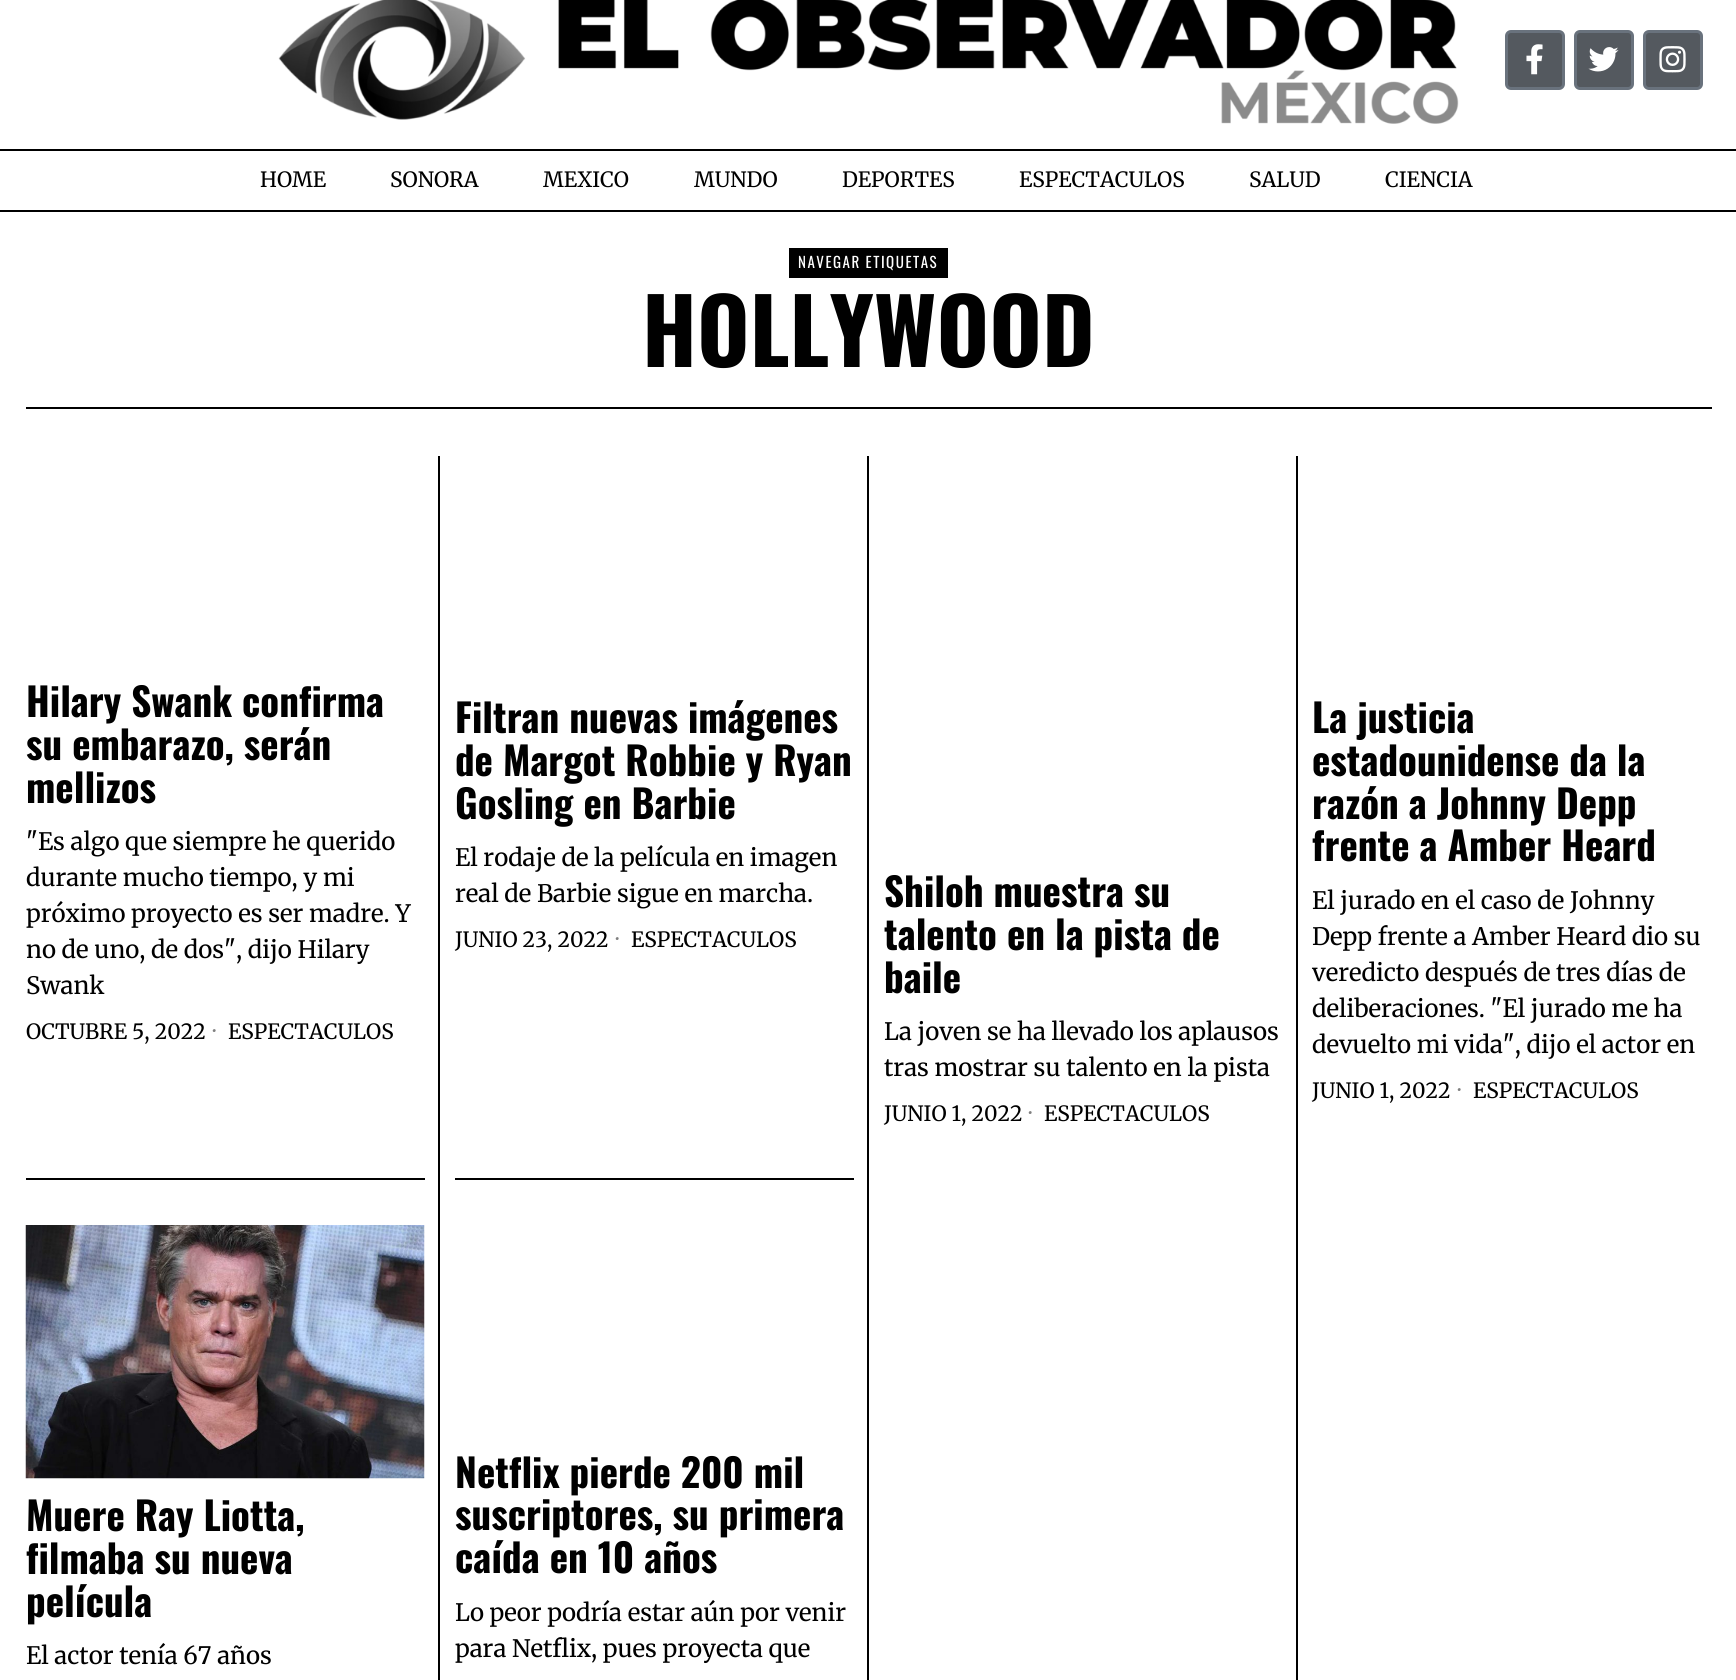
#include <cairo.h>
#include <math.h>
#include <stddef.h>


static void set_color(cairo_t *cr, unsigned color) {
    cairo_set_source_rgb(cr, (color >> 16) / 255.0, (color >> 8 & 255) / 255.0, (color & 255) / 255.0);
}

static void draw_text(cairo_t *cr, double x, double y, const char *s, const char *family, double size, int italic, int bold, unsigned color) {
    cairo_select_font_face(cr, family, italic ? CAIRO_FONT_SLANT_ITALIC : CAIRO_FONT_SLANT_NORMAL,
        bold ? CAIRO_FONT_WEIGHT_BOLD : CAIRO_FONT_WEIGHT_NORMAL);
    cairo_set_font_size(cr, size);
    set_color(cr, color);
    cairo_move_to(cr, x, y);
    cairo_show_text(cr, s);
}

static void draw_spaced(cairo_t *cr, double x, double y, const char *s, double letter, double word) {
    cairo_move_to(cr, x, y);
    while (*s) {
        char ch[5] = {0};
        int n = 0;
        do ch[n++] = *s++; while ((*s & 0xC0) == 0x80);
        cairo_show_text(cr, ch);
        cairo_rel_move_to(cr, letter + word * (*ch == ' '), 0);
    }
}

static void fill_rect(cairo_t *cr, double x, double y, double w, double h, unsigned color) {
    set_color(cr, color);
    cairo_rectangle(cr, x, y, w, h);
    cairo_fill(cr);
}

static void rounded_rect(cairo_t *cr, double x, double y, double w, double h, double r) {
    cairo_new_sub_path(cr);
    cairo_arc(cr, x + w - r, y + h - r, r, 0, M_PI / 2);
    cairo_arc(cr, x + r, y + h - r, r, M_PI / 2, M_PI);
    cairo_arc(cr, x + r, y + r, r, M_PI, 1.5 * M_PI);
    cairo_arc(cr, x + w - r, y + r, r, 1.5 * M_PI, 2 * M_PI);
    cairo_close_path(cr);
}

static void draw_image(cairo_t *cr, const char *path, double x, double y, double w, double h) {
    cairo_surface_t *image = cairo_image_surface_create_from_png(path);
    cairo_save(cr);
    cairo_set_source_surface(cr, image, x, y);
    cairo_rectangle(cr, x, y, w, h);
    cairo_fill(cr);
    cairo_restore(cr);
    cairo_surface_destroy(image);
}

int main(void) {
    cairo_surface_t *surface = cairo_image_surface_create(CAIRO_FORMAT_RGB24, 1736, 1680);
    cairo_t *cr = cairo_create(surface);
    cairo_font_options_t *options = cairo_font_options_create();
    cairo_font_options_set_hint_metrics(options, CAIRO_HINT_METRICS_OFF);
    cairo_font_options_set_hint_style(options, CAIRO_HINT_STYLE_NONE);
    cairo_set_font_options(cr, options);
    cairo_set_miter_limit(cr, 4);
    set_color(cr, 0xFFFFFF);
    cairo_paint(cr);
    draw_image(cr, "assets/img1.png", 278, 0, 1181, 124);
    set_color(cr, 0x54595F);
    rounded_rect(cr, 1506.5, 31.5, 57, 57, 4.5);
    cairo_fill_preserve(cr);
    set_color(cr, 0x69727D);
    cairo_set_line_width(cr, 3);
    cairo_stroke(cr);
    draw_image(cr, "assets/img2.png", 1526, 44, 17, 31);
    set_color(cr, 0x54595F);
    rounded_rect(cr, 1575.5, 31.5, 57, 57, 4.5);
    cairo_fill_preserve(cr);
    set_color(cr, 0x69727D);
    cairo_stroke(cr);
    draw_image(cr, "assets/img3.png", 1588, 47, 31, 25);
    set_color(cr, 0x54595F);
    rounded_rect(cr, 1644.5, 31.5, 57, 57, 4.5);
    cairo_fill_preserve(cr);
    set_color(cr, 0x69727D);
    cairo_stroke(cr);
    draw_image(cr, "assets/img4.png", 1659, 46, 27, 27);
    fill_rect(cr, 0, 149, 1736, 2, 0x000000);
    fill_rect(cr, 0, 210, 1736, 2, 0x000000);
    draw_text(cr, 260, 187, "HOME", "Merriweather", 21, 0, 0, 0x000000);
    draw_text(cr, 390, 187, "SONORA", "Merriweather", 21, 0, 0, 0x000000);
    draw_text(cr, 543, 187, "MEXICO", "Merriweather", 21, 0, 0, 0x000000);
    draw_text(cr, 694, 187, "MUNDO", "Merriweather", 21, 0, 0, 0x000000);
    draw_text(cr, 842, 187, "DEPORTES", "Merriweather", 21, 0, 0, 0x000000);
    draw_text(cr, 1019, 187, "ESPECTACULOS", "Merriweather", 21, 0, 0, 0x000000);
    draw_text(cr, 1249, 187, "SALUD", "Merriweather", 21, 0, 0, 0x000000);
    draw_text(cr, 1385, 187, "CIENCIA", "Merriweather", 21, 0, 0, 0x000000);
    fill_rect(cr, 26, 407, 1686, 2, 0x000000);
    fill_rect(cr, 789, 248, 159, 30, 0x000000);
    cairo_select_font_face(cr, "Oswald", CAIRO_FONT_SLANT_NORMAL, CAIRO_FONT_WEIGHT_NORMAL);
    cairo_set_font_size(cr, 15);
    set_color(cr, 0xFFFFFF);
    draw_spaced(cr, 798, 268, "NAVEGAR ETIQUETAS", 1.5, 0);
    draw_text(cr, 642, 367, "HOLLYWOOD", "Oswald", 90, 0, 1, 0x000000);
    draw_text(cr, 26, 717, "Hilary Swank confirma", "Oswald", 39, 0, 1, 0x000000);
    draw_text(cr, 26, 760, "su embarazo, serán", "Oswald", 39, 0, 1, 0x000000);
    draw_text(cr, 26, 803, "mellizos", "Oswald", 39, 0, 1, 0x000000);
    draw_text(cr, 26, 850, "\"Es algo que siempre he querido", "Merriweather", 24, 0, 0, 0x000000);
    draw_text(cr, 26, 886, "durante mucho tiempo, y mi", "Merriweather", 24, 0, 0, 0x000000);
    draw_text(cr, 26, 922, "próximo proyecto es ser madre. Y", "Merriweather", 24, 0, 0, 0x000000);
    draw_text(cr, 26, 958, "no de uno, de dos\", dijo Hilary", "Merriweather", 24, 0, 0, 0x000000);
    draw_text(cr, 26, 994, "Swank", "Merriweather", 24, 0, 0, 0x000000);
    draw_text(cr, 26, 1039, "OCTUBRE 5, 2022", "Merriweather", 21, 0, 0, 0x000000);
    draw_text(cr, 213, 1039, "·", "Merriweather", 21, 0, 0, 0x808080);
    draw_text(cr, 228, 1039, "ESPECTACULOS", "Merriweather", 21, 0, 0, 0x000000);
    fill_rect(cr, 438, 456, 2, 1224, 0x000000);
    fill_rect(cr, 867, 456, 2, 1224, 0x000000);
    fill_rect(cr, 1296, 456, 2, 1224, 0x000000);
    draw_text(cr, 455, 733, "Filtran nuevas imágenes", "Oswald", 39, 0, 1, 0x000000);
    draw_text(cr, 455, 776, "de Margot Robbie y Ryan", "Oswald", 39, 0, 1, 0x000000);
    draw_text(cr, 455, 819, "Gosling en Barbie", "Oswald", 39, 0, 1, 0x000000);
    draw_text(cr, 455, 866, "El rodaje de la película en imagen", "Merriweather", 24, 0, 0, 0x000000);
    draw_text(cr, 455, 902, "real de Barbie sigue en marcha.", "Merriweather", 24, 0, 0, 0x000000);
    draw_text(cr, 455, 947, "JUNIO 23, 2022", "Merriweather", 21, 0, 0, 0x000000);
    draw_text(cr, 616, 947, "·", "Merriweather", 21, 0, 0, 0x808080);
    draw_text(cr, 631, 947, "ESPECTACULOS", "Merriweather", 21, 0, 0, 0x000000);
    draw_text(cr, 884, 907, "Shiloh muestra su", "Oswald", 39, 0, 1, 0x000000);
    draw_text(cr, 884, 950, "talento en la pista de", "Oswald", 39, 0, 1, 0x000000);
    draw_text(cr, 884, 993, "baile", "Oswald", 39, 0, 1, 0x000000);
    draw_text(cr, 884, 1040, "La joven se ha llevado los aplausos", "Merriweather", 24, 0, 0, 0x000000);
    draw_text(cr, 884, 1076, "tras mostrar su talento en la pista", "Merriweather", 24, 0, 0, 0x000000);
    draw_text(cr, 884, 1121, "JUNIO 1, 2022", "Merriweather", 21, 0, 0, 0x000000);
    draw_text(cr, 1029, 1121, "·", "Merriweather", 21, 0, 0, 0x808080);
    draw_text(cr, 1044, 1121, "ESPECTACULOS", "Merriweather", 21, 0, 0, 0x000000);
    draw_text(cr, 1312, 733, "La justicia", "Oswald", 39, 0, 1, 0x000000);
    draw_text(cr, 1312, 776, "estadounidense da la", "Oswald", 39, 0, 1, 0x000000);
    draw_text(cr, 1312, 819, "razón a Johnny Depp", "Oswald", 39, 0, 1, 0x000000);
    draw_text(cr, 1312, 861, "frente a Amber Heard", "Oswald", 39, 0, 1, 0x000000);
    draw_text(cr, 1312, 909, "El jurado en el caso de Johnny", "Merriweather", 24, 0, 0, 0x000000);
    draw_text(cr, 1312, 945, "Depp frente a Amber Heard dio su", "Merriweather", 24, 0, 0, 0x000000);
    draw_text(cr, 1312, 981, "veredicto después de tres días de", "Merriweather", 24, 0, 0, 0x000000);
    draw_text(cr, 1312, 1017, "deliberaciones. \"El jurado me ha", "Merriweather", 24, 0, 0, 0x000000);
    draw_text(cr, 1312, 1053, "devuelto mi vida\", dijo el actor en", "Merriweather", 24, 0, 0, 0x000000);
    draw_text(cr, 1312, 1098, "JUNIO 1, 2022", "Merriweather", 21, 0, 0, 0x000000);
    draw_text(cr, 1458, 1098, "·", "Merriweather", 21, 0, 0, 0x808080);
    draw_text(cr, 1473, 1098, "ESPECTACULOS", "Merriweather", 21, 0, 0, 0x000000);
    fill_rect(cr, 26, 1178, 399, 2, 0x000000);
    draw_image(cr, "assets/img5.png", 25, 1225, 400, 254);
    draw_text(cr, 26, 1531, "Muere Ray Liotta,", "Oswald", 39, 0, 1, 0x000000);
    draw_text(cr, 26, 1574, "filmaba su nueva", "Oswald", 39, 0, 1, 0x000000);
    draw_text(cr, 26, 1617, "película", "Oswald", 39, 0, 1, 0x000000);
    draw_text(cr, 26, 1664, "El actor tenía 67 años", "Merriweather", 24, 0, 0, 0x000000);
    fill_rect(cr, 455, 1178, 399, 2, 0x000000);
    draw_text(cr, 455, 1488, "Netflix pierde 200 mil", "Oswald", 39, 0, 1, 0x000000);
    draw_text(cr, 455, 1530, "suscriptores, su primera", "Oswald", 39, 0, 1, 0x000000);
    draw_text(cr, 455, 1573, "caída en 10 años", "Oswald", 39, 0, 1, 0x000000);
    draw_text(cr, 455, 1621, "Lo peor podría estar aún por venir", "Merriweather", 24, 0, 0, 0x000000);
    draw_text(cr, 455, 1657, "para Netflix, pues proyecta que", "Merriweather", 24, 0, 0, 0x000000);
    cairo_surface_write_to_png(surface, "output.png");
    cairo_font_options_destroy(options);
    cairo_destroy(cr);
    cairo_surface_destroy(surface);
    return 0;
}
